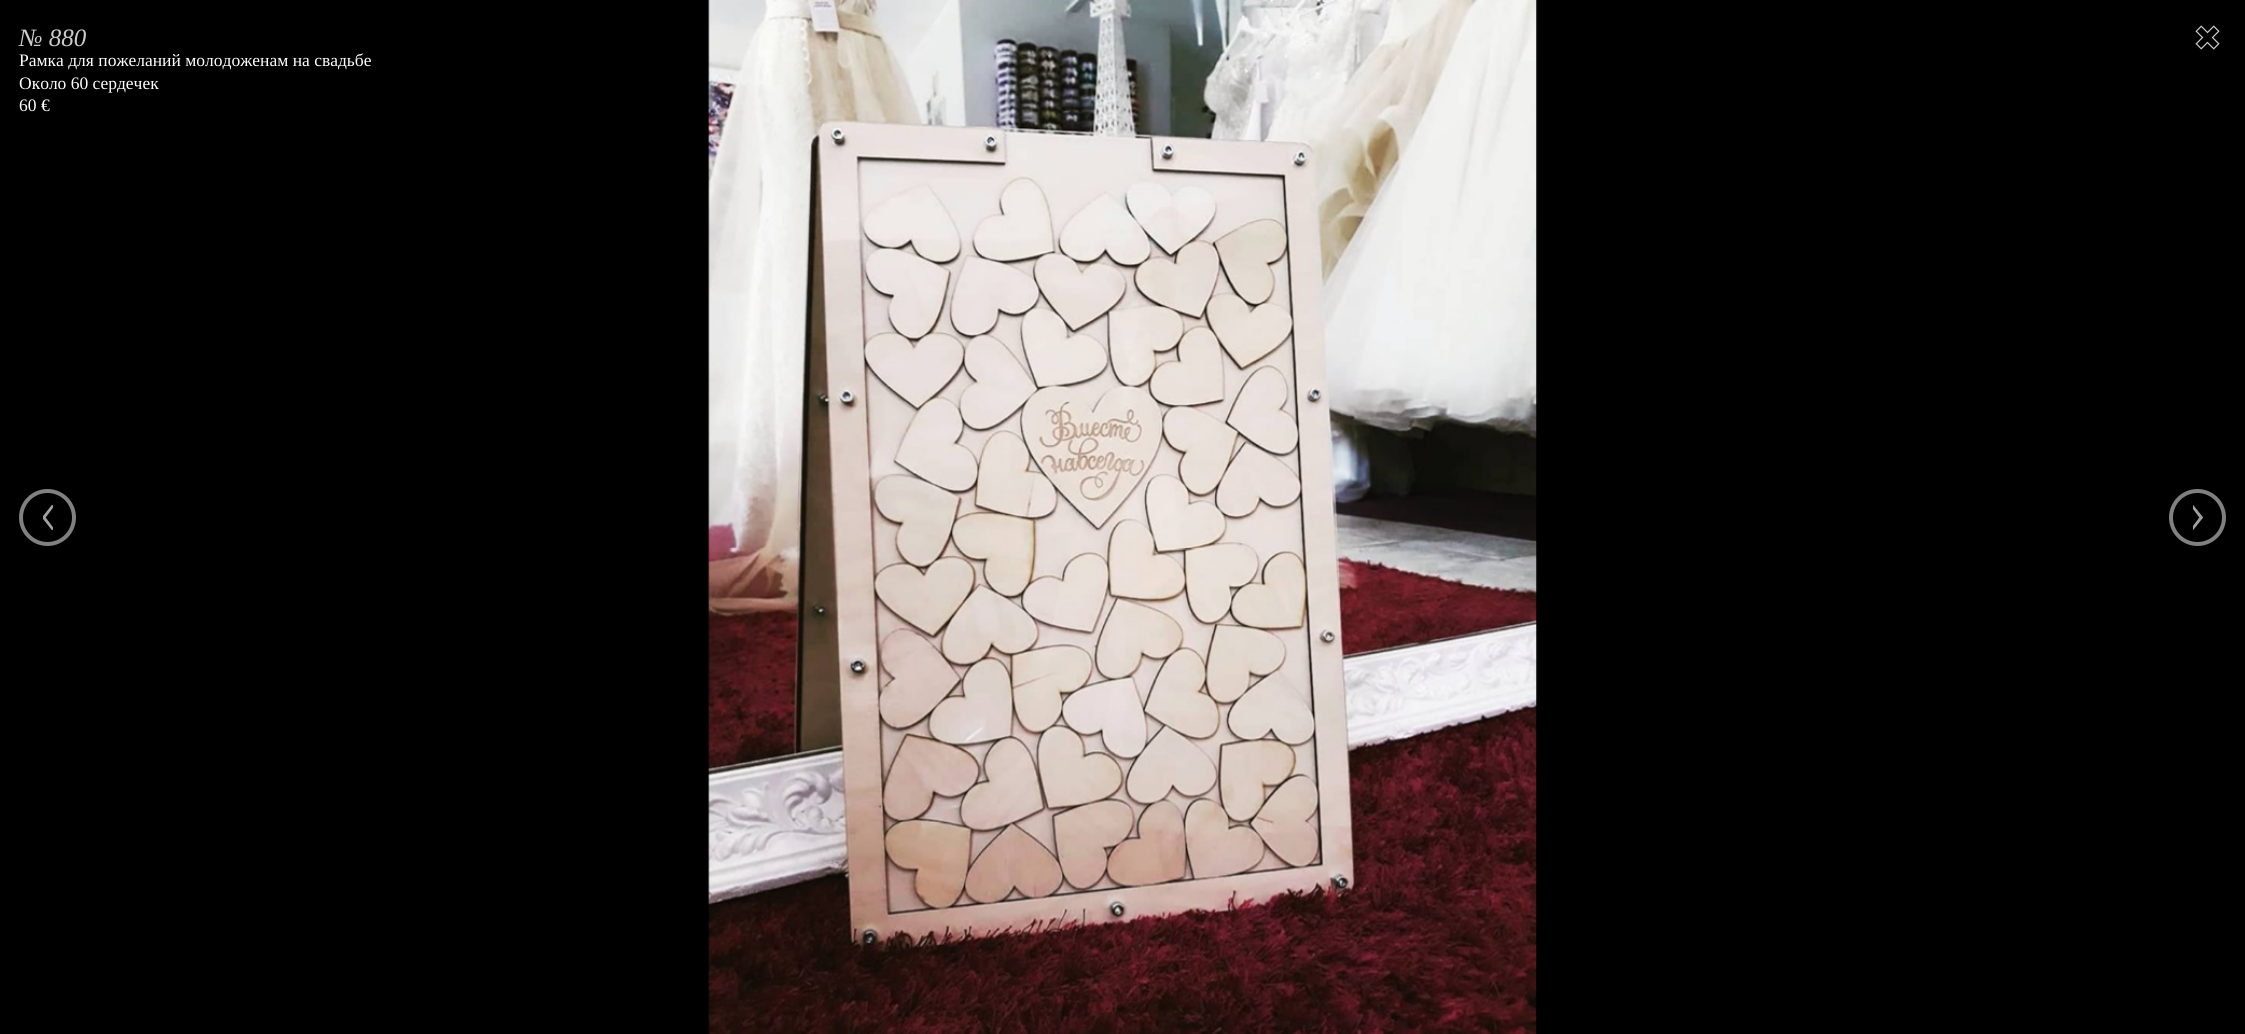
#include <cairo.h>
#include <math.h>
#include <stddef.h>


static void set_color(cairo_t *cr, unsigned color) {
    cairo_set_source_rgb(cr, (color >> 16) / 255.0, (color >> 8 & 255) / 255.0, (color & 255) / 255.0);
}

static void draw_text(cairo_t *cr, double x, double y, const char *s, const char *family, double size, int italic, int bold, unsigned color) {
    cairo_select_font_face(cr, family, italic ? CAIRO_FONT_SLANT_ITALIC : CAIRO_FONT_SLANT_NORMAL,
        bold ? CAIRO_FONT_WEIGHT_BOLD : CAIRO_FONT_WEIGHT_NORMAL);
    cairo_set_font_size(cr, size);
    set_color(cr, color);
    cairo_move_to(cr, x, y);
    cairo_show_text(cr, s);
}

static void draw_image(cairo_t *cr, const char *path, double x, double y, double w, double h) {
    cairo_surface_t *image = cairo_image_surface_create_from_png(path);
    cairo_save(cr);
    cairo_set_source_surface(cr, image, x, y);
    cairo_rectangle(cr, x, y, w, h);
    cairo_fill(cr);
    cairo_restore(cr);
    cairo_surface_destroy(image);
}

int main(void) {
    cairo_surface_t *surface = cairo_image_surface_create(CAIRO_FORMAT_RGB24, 2245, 1034);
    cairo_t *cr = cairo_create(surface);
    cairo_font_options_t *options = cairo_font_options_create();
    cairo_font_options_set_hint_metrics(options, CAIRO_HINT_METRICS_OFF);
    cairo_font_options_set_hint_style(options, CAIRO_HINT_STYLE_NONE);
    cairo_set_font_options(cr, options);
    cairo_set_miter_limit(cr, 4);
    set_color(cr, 0x000000);
    cairo_paint(cr);
    draw_text(cr, 19, 46, "№ 880", "Liberation Serif", 25, 1, 0, 0xCCCCCC);
    draw_image(cr, "assets/img1.png", 708, 0, 830, 1034);
    draw_image(cr, "assets/img2.png", 2195, 25, 25, 25);
    draw_text(cr, 19, 66, "Рамка для пожеланий молодоженам на свадьбе", "Liberation Serif", 17.5, 0, 0, 0xFFFFFF);
    draw_text(cr, 19, 89, "Около 60 сердечек", "Liberation Serif", 17.5, 0, 0, 0xFFFFFF);
    draw_text(cr, 19, 111, "60 €", "Liberation Serif", 17.5, 0, 0, 0xFFFFFF);
    draw_image(cr, "assets/img3.png", 43, 505, 10, 25);
    cairo_arc(cr, 47.5, 517.5, 26.5, 0, 2 * M_PI);
    set_color(cr, 0x808080);
    cairo_set_line_width(cr, 4);
    cairo_stroke(cr);
    draw_image(cr, "assets/img4.png", 2193, 505, 10, 25);
    cairo_arc(cr, 2197.5, 517.5, 26.5, 0, 2 * M_PI);
    cairo_stroke(cr);
    cairo_surface_write_to_png(surface, "output.png");
    cairo_font_options_destroy(options);
    cairo_destroy(cr);
    cairo_surface_destroy(surface);
    return 0;
}
